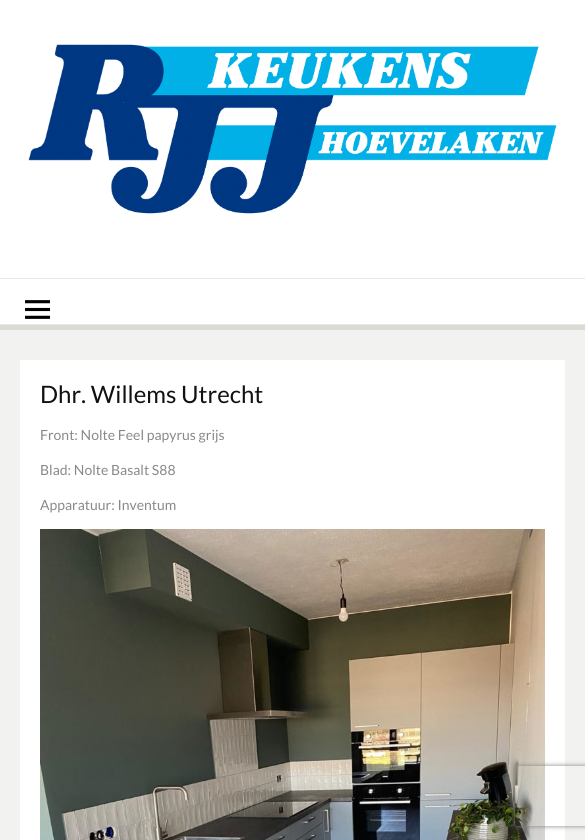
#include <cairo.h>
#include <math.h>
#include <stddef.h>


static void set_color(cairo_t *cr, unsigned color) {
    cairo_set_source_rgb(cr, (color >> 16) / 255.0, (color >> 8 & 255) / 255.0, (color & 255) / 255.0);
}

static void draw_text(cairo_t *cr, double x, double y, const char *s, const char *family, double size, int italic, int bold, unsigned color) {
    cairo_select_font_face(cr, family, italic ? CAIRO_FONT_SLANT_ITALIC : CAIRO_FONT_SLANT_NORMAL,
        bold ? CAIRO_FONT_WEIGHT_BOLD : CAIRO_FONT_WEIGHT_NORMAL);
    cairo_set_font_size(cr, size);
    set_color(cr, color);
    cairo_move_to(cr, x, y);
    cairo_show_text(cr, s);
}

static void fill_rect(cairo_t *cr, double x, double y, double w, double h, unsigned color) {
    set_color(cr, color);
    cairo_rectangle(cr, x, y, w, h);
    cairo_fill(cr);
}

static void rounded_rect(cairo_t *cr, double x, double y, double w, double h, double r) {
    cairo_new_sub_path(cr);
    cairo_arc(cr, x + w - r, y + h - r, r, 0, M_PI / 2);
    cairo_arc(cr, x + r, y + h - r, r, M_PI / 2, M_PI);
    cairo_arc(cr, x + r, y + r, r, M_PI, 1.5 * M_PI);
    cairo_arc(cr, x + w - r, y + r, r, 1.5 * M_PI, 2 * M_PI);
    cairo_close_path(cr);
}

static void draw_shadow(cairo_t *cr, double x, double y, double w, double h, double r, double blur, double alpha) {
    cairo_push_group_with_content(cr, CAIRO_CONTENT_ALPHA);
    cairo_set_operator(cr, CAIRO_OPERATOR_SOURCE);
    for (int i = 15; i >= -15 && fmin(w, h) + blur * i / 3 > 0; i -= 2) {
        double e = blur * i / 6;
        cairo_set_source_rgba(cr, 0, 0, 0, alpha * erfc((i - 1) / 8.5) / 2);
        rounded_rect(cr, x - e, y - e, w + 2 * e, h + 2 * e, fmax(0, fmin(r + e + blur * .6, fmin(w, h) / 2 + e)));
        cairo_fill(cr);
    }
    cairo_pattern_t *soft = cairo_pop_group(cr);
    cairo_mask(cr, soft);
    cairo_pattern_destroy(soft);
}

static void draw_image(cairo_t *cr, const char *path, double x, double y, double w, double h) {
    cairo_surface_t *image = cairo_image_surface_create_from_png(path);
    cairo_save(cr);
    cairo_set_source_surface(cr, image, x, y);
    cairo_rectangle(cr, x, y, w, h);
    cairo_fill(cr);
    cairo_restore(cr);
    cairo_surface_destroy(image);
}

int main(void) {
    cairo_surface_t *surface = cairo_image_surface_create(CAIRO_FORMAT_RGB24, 585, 840);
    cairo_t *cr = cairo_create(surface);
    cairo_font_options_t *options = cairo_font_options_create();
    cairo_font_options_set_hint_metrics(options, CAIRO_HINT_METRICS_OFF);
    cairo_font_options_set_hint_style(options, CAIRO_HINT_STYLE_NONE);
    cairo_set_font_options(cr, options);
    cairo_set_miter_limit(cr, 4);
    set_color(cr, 0xFFFFFF);
    cairo_paint(cr);
    draw_image(cr, "assets/img1.png", 28, 44, 529, 170);
    fill_rect(cr, 0, 278, 585, 1, 0xE6E6E6);
    fill_rect(cr, 0, 324, 585, 1, 0xE6E6E6);
    draw_image(cr, "assets/img2.png", 25, 300, 25, 19);
    fill_rect(cr, 0, 330, 585, 510, 0xF2F2F0);
    fill_rect(cr, 0, 325, 585, 5, 0xDADBD4);
    fill_rect(cr, 20, 360, 545, 480, 0xFFFFFF);
    draw_text(cr, 40, 403, "Dhr. Willems Utrecht", "Lato", 24, 0, 0, 0x111111);
    draw_text(cr, 40, 440, "Front: Nolte Feel papyrus grijs", "Lato", 14, 0, 0, 0x898989);
    draw_text(cr, 40, 475, "Blad: Nolte Basalt S88", "Lato", 14, 0, 0, 0x898989);
    draw_text(cr, 40, 510, "Apparatuur: Inventum", "Lato", 14, 0, 0, 0x898989);
    draw_image(cr, "assets/img3.png", 40, 529, 505, 311);
    cairo_save(cr);
    cairo_set_fill_rule(cr, CAIRO_FILL_RULE_EVEN_ODD);
    cairo_new_path(cr);
    cairo_move_to(cr, 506, 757);
    cairo_line_to(cr, 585, 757);
    cairo_line_to(cr, 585, 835);
    cairo_line_to(cr, 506, 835);
    cairo_close_path(cr);
    cairo_move_to(cr, 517, 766);
    cairo_line_to(cr, 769, 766);
    cairo_curve_to(cr, 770, 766, 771, 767, 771, 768);
    cairo_line_to(cr, 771, 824);
    cairo_curve_to(cr, 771, 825, 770, 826, 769, 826);
    cairo_line_to(cr, 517, 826);
    cairo_curve_to(cr, 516, 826, 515, 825, 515, 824);
    cairo_line_to(cr, 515, 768);
    cairo_curve_to(cr, 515, 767, 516, 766, 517, 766);
    cairo_close_path(cr);
    cairo_clip(cr);
    set_color(cr, 0x808080);
    draw_shadow(cr, 515, 766, 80, 60, 2, 2.5, 1);
    cairo_restore(cr);
    cairo_surface_write_to_png(surface, "output.png");
    cairo_font_options_destroy(options);
    cairo_destroy(cr);
    cairo_surface_destroy(surface);
    return 0;
}
